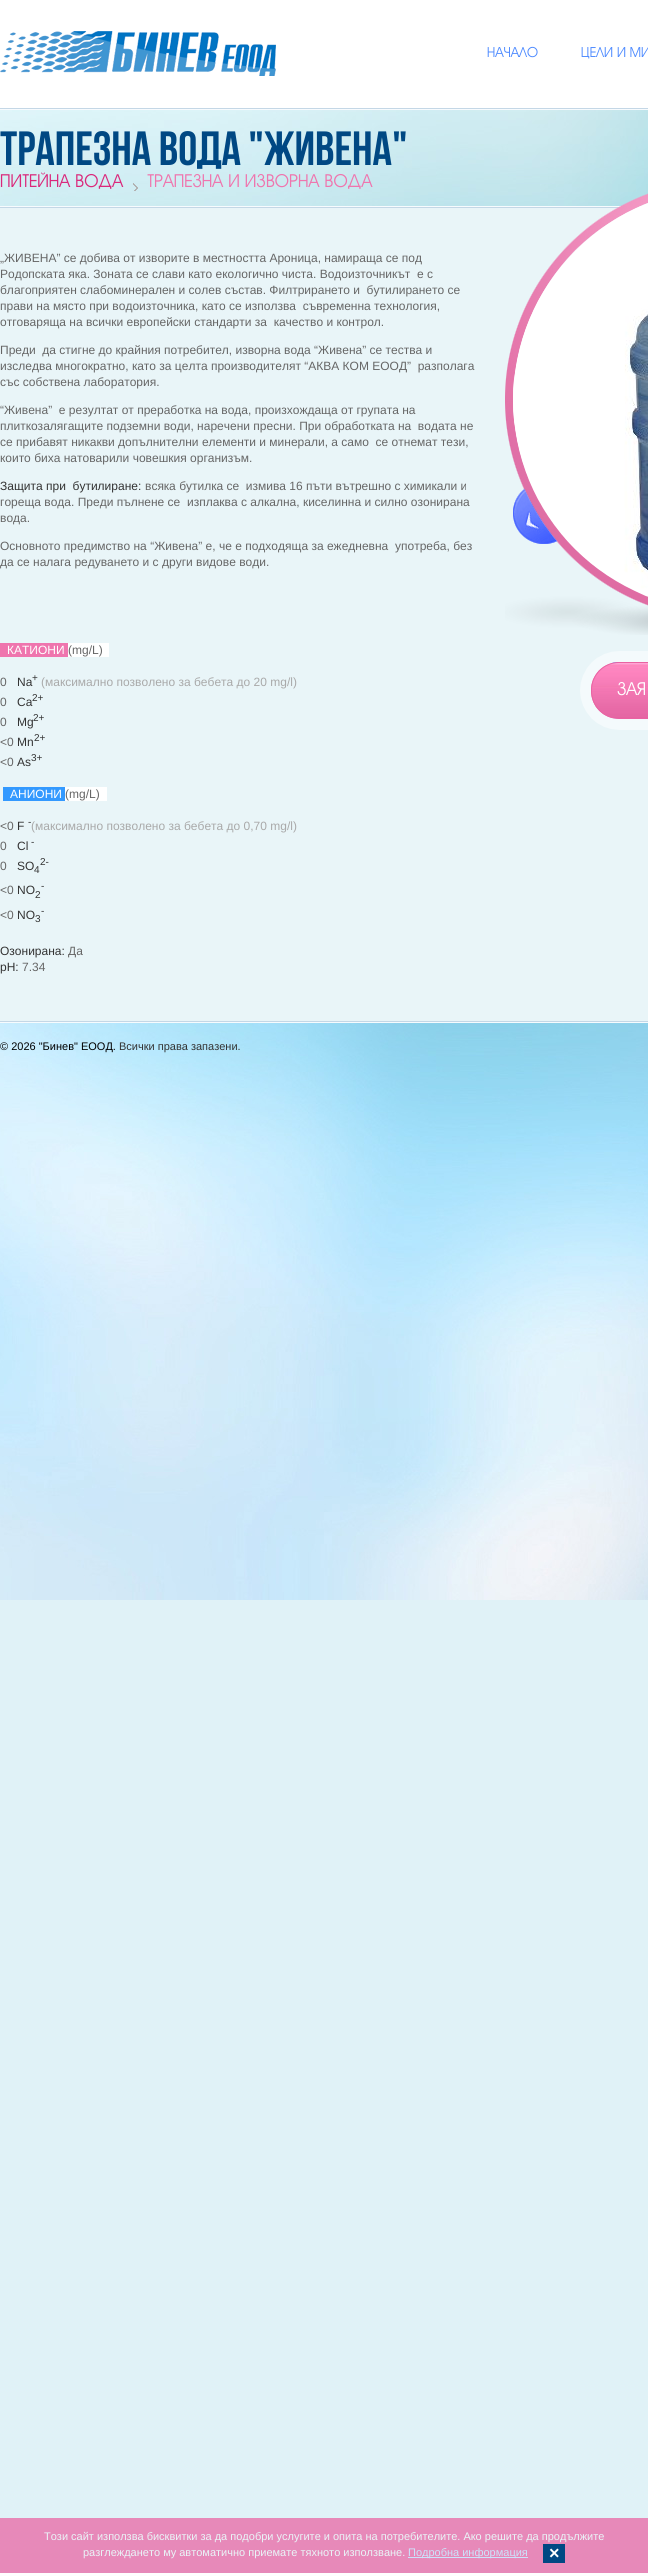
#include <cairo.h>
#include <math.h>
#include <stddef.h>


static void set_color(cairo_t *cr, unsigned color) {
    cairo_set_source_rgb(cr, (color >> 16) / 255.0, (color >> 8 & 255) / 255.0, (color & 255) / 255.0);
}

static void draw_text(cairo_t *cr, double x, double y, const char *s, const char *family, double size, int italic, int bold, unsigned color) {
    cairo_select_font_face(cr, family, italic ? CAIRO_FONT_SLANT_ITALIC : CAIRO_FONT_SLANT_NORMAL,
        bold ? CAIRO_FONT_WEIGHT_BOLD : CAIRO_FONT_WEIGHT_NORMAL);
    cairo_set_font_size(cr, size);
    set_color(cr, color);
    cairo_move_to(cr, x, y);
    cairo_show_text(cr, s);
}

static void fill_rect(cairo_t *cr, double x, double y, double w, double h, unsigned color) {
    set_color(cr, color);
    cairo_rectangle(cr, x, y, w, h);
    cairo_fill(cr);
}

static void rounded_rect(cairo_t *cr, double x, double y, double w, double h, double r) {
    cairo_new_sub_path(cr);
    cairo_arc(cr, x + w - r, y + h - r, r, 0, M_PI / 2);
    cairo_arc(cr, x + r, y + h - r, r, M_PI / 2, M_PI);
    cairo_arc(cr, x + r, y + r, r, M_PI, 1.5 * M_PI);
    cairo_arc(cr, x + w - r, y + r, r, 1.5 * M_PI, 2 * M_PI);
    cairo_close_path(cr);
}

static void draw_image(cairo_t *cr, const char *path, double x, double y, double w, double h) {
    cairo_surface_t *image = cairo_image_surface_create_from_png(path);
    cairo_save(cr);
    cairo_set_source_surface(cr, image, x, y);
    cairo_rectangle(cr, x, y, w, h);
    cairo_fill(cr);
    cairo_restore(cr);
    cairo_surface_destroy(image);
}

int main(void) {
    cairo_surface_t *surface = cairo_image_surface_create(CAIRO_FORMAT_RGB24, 648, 2573);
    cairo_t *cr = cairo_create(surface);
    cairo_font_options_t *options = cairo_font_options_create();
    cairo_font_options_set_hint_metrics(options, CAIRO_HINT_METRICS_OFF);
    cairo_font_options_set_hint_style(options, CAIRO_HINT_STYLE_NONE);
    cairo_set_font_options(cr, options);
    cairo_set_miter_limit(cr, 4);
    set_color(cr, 0xE0F2F7);
    cairo_paint(cr);
    draw_image(cr, "assets/img1.png", 0, 110, 648, 1490);
    fill_rect(cr, 0, 0, 648, 108, 0xFFFFFF);
    fill_rect(cr, 0, 108, 648, 1, 0xC4D7E6);
    draw_image(cr, "assets/img2.png", 0, 31, 276, 45);
    draw_text(cr, 487, 57, "НАЧАЛО", "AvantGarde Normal", 14, 0, 0, 0x4D8AFF);
    draw_text(cr, 581, 57, "ЦЕЛИ И МИ", "AvantGarde Normal", 14, 0, 0, 0x4D8AFF);
    fill_rect(cr, 0, 109, 648, 1, 0xF7FBFE);
    fill_rect(cr, 0, 206, 648, 1, 0xF7FBFE);
    draw_text(cr, 0, 165, "Трапезна вода \"Живена\"", "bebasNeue", 48, 0, 0, 0x004883);
    draw_text(cr, 0, 187, "ПИТЕЙНА ВОДА", "AvantGarde Normal", 18, 0, 0, 0xDA287B);
    draw_image(cr, "assets/img3.png", 133, 183, 5, 8);
    draw_text(cr, 147, 187, "ТРАПЕЗНА И ИЗВОРНА ВОДА", "AvantGarde Normal", 18, 0, 0, 0xEF75AE);
    fill_rect(cr, 0, 208, 648, 813, 0xE9F5F8);
    fill_rect(cr, 0, 207, 639, 1, 0xC4D7E6);
    fill_rect(cr, 0, 1021, 648, 1, 0xC4D7E6);
    draw_text(cr, 0, 262, "„ЖИВЕНА” се добива от изворите в местността Ароница, намираща се под", "Liberation Sans", 12, 0, 0, 0x666666);
    draw_text(cr, 0, 278, "Родопската яка. Зоната се слави като екологично чиста. Водоизточникът  е с", "Liberation Sans", 12, 0, 0, 0x666666);
    draw_text(cr, 0, 294, "благоприятен слабоминерален и солев състав. Филтрирането и  бутилирането се", "Liberation Sans", 12, 0, 0, 0x666666);
    draw_text(cr, 0, 310, "прави на място при водоизточника, като се използва  съвременна технология,", "Liberation Sans", 12, 0, 0, 0x666666);
    draw_text(cr, 0, 326, "отговаряща на всички европейски стандарти за  качество и контрол.", "Liberation Sans", 12, 0, 0, 0x666666);
    draw_text(cr, 0, 354, "Преди  да стигне до крайния потребител, изворна вода “Живена” се тества и", "Liberation Sans", 12, 0, 0, 0x666666);
    draw_text(cr, 0, 370, "изследва многократно, като за целта производителят “АКВА КОМ ЕООД”  разполага", "Liberation Sans", 12, 0, 0, 0x666666);
    draw_text(cr, 0, 386, "със собствена лаборатория.", "Liberation Sans", 12, 0, 0, 0x666666);
    draw_text(cr, 0, 414, "“Живена”  е резултат от преработка на вода, произхождаща от групата на", "Liberation Sans", 12, 0, 0, 0x666666);
    draw_text(cr, 0, 430, "плиткозалягащите подземни води, наречени пресни. При обработката на  водата не", "Liberation Sans", 12, 0, 0, 0x666666);
    draw_text(cr, 0, 446, "се прибавят никакви допълнителни елементи и минерали, а само  се отнемат тези,", "Liberation Sans", 12, 0, 0, 0x666666);
    draw_text(cr, 0, 462, "които биха натоварили човешкия организъм.", "Liberation Sans", 12, 0, 0, 0x666666);
    draw_text(cr, 0, 490, "Защита при  бутилиране:", "Liberation Sans", 12, 0, 0, 0x333333);
    draw_text(cr, 145, 490, "всяка бутилка се  измива 16 пъти вътрешно с химикали и", "Liberation Sans", 12, 0, 0, 0x666666);
    draw_text(cr, 0, 506, "гореща вода. Преди пълнене се  изплаква с алкална, киселинна и силно озонирана", "Liberation Sans", 12, 0, 0, 0x666666);
    draw_text(cr, 0, 522, "вода.", "Liberation Sans", 12, 0, 0, 0x666666);
    draw_text(cr, 0, 550, "Основното предимство на “Живена” е, че е подходяща за ежедневна  употреба, без", "Liberation Sans", 12, 0, 0, 0x666666);
    draw_text(cr, 0, 566, "да се налага редуването и с други видове води.", "Liberation Sans", 12, 0, 0, 0x666666);
    fill_rect(cr, 0, 643, 68, 14, 0xEF75AE);
    draw_text(cr, 7, 654, "КАТИОНИ", "Liberation Sans", 12, 0, 0, 0xFFFFFF);
    fill_rect(cr, 68, 643, 41, 14, 0xFFFFFF);
    draw_text(cr, 68, 654, "(mg/L)", "Liberation Sans", 12, 0, 0, 0x666666);
    draw_text(cr, 0, 686, "0", "Liberation Sans", 12, 0, 0, 0x666666);
    draw_text(cr, 17, 686, "Na", "Liberation Sans", 12, 0, 0, 0x333333);
    draw_text(cr, 32, 681, "+", "Liberation Sans", 10, 0, 0, 0x333333);
    draw_text(cr, 41, 686, "(максимално позволено за бебета до 20 mg/l)", "Liberation Sans", 12, 0, 0, 0xA9A9A9);
    draw_text(cr, 0, 706, "0", "Liberation Sans", 12, 0, 0, 0x666666);
    draw_text(cr, 17, 706, "Ca", "Liberation Sans", 12, 0, 0, 0x333333);
    draw_text(cr, 32, 701, "2+", "Liberation Sans", 10, 0, 0, 0x333333);
    draw_text(cr, 0, 726, "0", "Liberation Sans", 12, 0, 0, 0x666666);
    draw_text(cr, 17, 726, "Mg", "Liberation Sans", 12, 0, 0, 0x333333);
    draw_text(cr, 33, 721, "2+", "Liberation Sans", 10, 0, 0, 0x333333);
    draw_text(cr, 0, 746, "<0", "Liberation Sans", 12, 0, 0, 0x666666);
    draw_text(cr, 17, 746, "Mn", "Liberation Sans", 12, 0, 0, 0x333333);
    draw_text(cr, 34, 741, "2+", "Liberation Sans", 10, 0, 0, 0x333333);
    draw_text(cr, 0, 766, "<0", "Liberation Sans", 12, 0, 0, 0x666666);
    draw_text(cr, 17, 766, "As", "Liberation Sans", 12, 0, 0, 0x333333);
    draw_text(cr, 31, 761, "3+", "Liberation Sans", 10, 0, 0, 0x333333);
    fill_rect(cr, 3, 787, 62, 14, 0x3399FF);
    draw_text(cr, 10, 798, "АНИОНИ", "Liberation Sans", 12, 0, 0, 0xFFFFFF);
    fill_rect(cr, 65, 787, 42, 14, 0xFFFFFF);
    draw_text(cr, 65, 798, "(mg/L)", "Liberation Sans", 12, 0, 0, 0x666666);
    draw_image(cr, "assets/img4.png", 505, 193, 143, 442);
    draw_image(cr, "assets/img6.png", 513, 373, 2, 54);
    draw_image(cr, "assets/img5.png", 513, 203, 135, 394);
    draw_image(cr, "assets/img7.png", 513, 488, 45, 56);
    draw_image(cr, "assets/img8.png", 580, 651, 68, 79);
    draw_image(cr, "assets/img9.png", 591, 662, 57, 57);
    rounded_rect(cr, 591.5, 662.5, 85, 56, 27.5);
    set_color(cr, 0xE963A2);
    cairo_set_line_width(cr, 1);
    cairo_stroke(cr);
    draw_text(cr, 617, 695, "ЗАЯ", "AvantGarde Normal", 18, 0, 0, 0xFFFFFF);
    draw_text(cr, 0, 830, "<0", "Liberation Sans", 12, 0, 0, 0x666666);
    draw_text(cr, 17, 830, "F", "Liberation Sans", 12, 0, 0, 0x333333);
    draw_text(cr, 28, 825, "-", "Liberation Sans", 10, 0, 0, 0x333333);
    draw_text(cr, 31, 830, "(максимално позволено за бебета до 0,70 mg/l)", "Liberation Sans", 12, 0, 0, 0xA9A9A9);
    draw_text(cr, 0, 850, "0", "Liberation Sans", 12, 0, 0, 0x666666);
    draw_text(cr, 17, 850, "Cl", "Liberation Sans", 12, 0, 0, 0x333333);
    draw_text(cr, 31, 845, "-", "Liberation Sans", 10, 0, 0, 0x333333);
    draw_text(cr, 0, 870, "0", "Liberation Sans", 12, 0, 0, 0x666666);
    draw_text(cr, 17, 870, "SO", "Liberation Sans", 12, 0, 0, 0x333333);
    draw_text(cr, 34, 873, "4", "Liberation Sans", 10, 0, 0, 0x333333);
    draw_text(cr, 40, 865, "2-", "Liberation Sans", 10, 0, 0, 0x333333);
    draw_text(cr, 0, 894, "<0", "Liberation Sans", 12, 0, 0, 0x666666);
    draw_text(cr, 17, 894, "NO", "Liberation Sans", 12, 0, 0, 0x333333);
    draw_text(cr, 41, 889, "-", "Liberation Sans", 10, 0, 0, 0x333333);
    draw_text(cr, 35, 898, "2", "Liberation Sans", 10, 0, 0, 0x333333);
    draw_text(cr, 0, 919, "<0", "Liberation Sans", 12, 0, 0, 0x666666);
    draw_text(cr, 17, 919, "NO", "Liberation Sans", 12, 0, 0, 0x333333);
    draw_text(cr, 41, 914, "-", "Liberation Sans", 10, 0, 0, 0x333333);
    draw_text(cr, 35, 922, "3", "Liberation Sans", 10, 0, 0, 0x333333);
    draw_text(cr, 0, 955, "Озонирана:", "Liberation Sans", 12, 0, 0, 0x333333);
    draw_text(cr, 68, 955, "Да", "Liberation Sans", 12, 0, 0, 0x666666);
    draw_text(cr, 0, 971, "pH:", "Liberation Sans", 12, 0, 0, 0x333333);
    draw_text(cr, 22, 971, "7.34", "Liberation Sans", 12, 0, 0, 0x666666);
    fill_rect(cr, 0, 1022, 648, 1, 0xF7FBFE);
    draw_text(cr, 0, 1050, "© 2026 \"Бинев\" ЕООД.", "Liberation Sans", 11, 0, 0, 0x000000);
    draw_text(cr, 119, 1050, "Всички права запазени.", "Liberation Sans", 11, 0, 0, 0x333333);
    fill_rect(cr, 0, 2518, 648, 55, 0xE789B9);
    draw_text(cr, 44, 2540, "Този сайт използва бисквитки за да подобри услугите и опита на потребителите. Ако решите да продължите", "Liberation Sans", 11, 0, 0, 0xE9F5F8);
    draw_text(cr, 83, 2556, "разглеждането му автоматично приемате тяхното използване.", "Liberation Sans", 11, 0, 0, 0xE9F5F8);
    fill_rect(cr, 408, 2557, 120, 1, 0xCBE3FB);
    draw_text(cr, 408, 2556, "Подробна информация", "Liberation Sans", 11, 0, 0, 0xCBE3FB);
    fill_rect(cr, 543, 2544, 22, 19, 0x004883);
    draw_text(cr, 549, 2559, "×", "Liberation Sans", 18, 0, 1, 0xFFFFFF);
    cairo_surface_write_to_png(surface, "output.png");
    cairo_font_options_destroy(options);
    cairo_destroy(cr);
    cairo_surface_destroy(surface);
    return 0;
}
